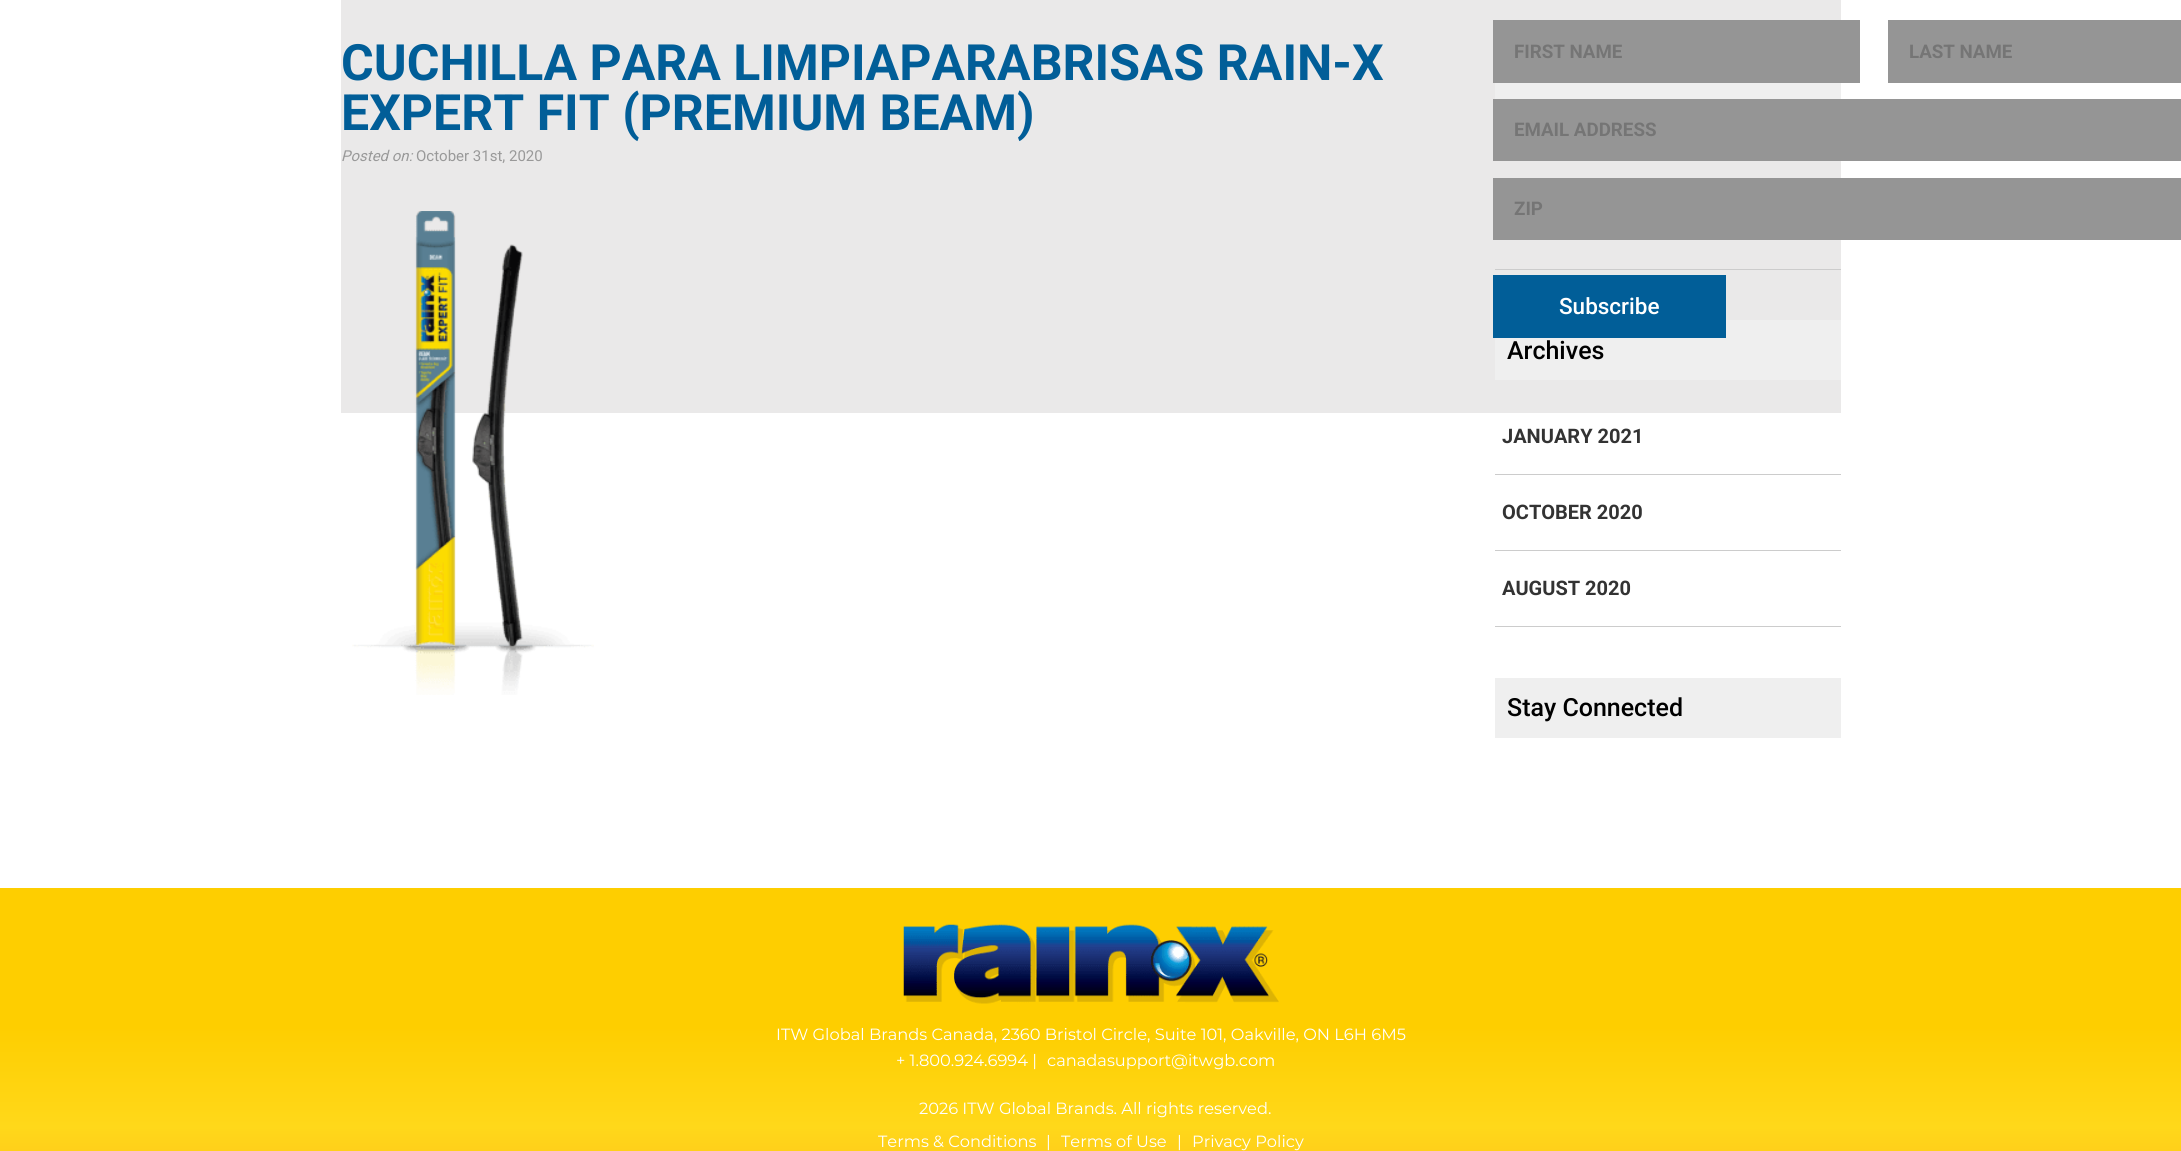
#include <cairo.h>
#include <math.h>
#include <stddef.h>


static void set_color(cairo_t *cr, unsigned color) {
    cairo_set_source_rgb(cr, (color >> 16) / 255.0, (color >> 8 & 255) / 255.0, (color & 255) / 255.0);
}

static void draw_text(cairo_t *cr, double x, double y, const char *s, const char *family, double size, int italic, int bold, unsigned color) {
    cairo_select_font_face(cr, family, italic ? CAIRO_FONT_SLANT_ITALIC : CAIRO_FONT_SLANT_NORMAL,
        bold ? CAIRO_FONT_WEIGHT_BOLD : CAIRO_FONT_WEIGHT_NORMAL);
    cairo_set_font_size(cr, size);
    set_color(cr, color);
    cairo_move_to(cr, x, y);
    cairo_show_text(cr, s);
}

static void fill_rect(cairo_t *cr, double x, double y, double w, double h, unsigned color) {
    set_color(cr, color);
    cairo_rectangle(cr, x, y, w, h);
    cairo_fill(cr);
}

static void draw_image(cairo_t *cr, const char *path, double x, double y, double w, double h) {
    cairo_surface_t *image = cairo_image_surface_create_from_png(path);
    cairo_save(cr);
    cairo_set_source_surface(cr, image, x, y);
    cairo_rectangle(cr, x, y, w, h);
    cairo_fill(cr);
    cairo_restore(cr);
    cairo_surface_destroy(image);
}

int main(void) {
    cairo_surface_t *surface = cairo_image_surface_create(CAIRO_FORMAT_RGB24, 2181, 1151);
    cairo_t *cr = cairo_create(surface);
    cairo_font_options_t *options = cairo_font_options_create();
    cairo_font_options_set_hint_metrics(options, CAIRO_HINT_METRICS_OFF);
    cairo_font_options_set_hint_style(options, CAIRO_HINT_STYLE_NONE);
    cairo_set_font_options(cr, options);
    cairo_set_miter_limit(cr, 4);
    cairo_pattern_t *gradient;
    set_color(cr, 0xFFFFFF);
    cairo_paint(cr);
    fill_rect(cr, 341, 0, 1500, 413, 0xEAE9E9);
    draw_text(cr, 341, 80, "CUCHILLA PARA LIMPIAPARABRISAS RAIN-X", "Roboto", 50, 0, 1, 0x015E98);
    draw_text(cr, 341, 130, "EXPERT FIT (PREMIUM BEAM)", "Roboto", 50, 0, 1, 0x015E98);
    draw_text(cr, 341, 161, "Posted on:", "Roboto", 15, 1, 0, 0x999999);
    draw_text(cr, 416, 161, "October 31st, 2020", "Roboto", 15, 0, 0, 0x999999);
    draw_image(cr, "assets/img1.png", 352, 211, 242, 484);
    fill_rect(cr, 1493, 20, 367, 63, 0x959595);
    draw_text(cr, 1514, 58, "FIRST NAME", "Roboto", 18.75, 0, 1, 0x757575);
    fill_rect(cr, 1888, 20, 293, 63, 0x959595);
    draw_text(cr, 1909, 58, "LAST NAME", "Roboto", 18.75, 0, 1, 0x757575);
    fill_rect(cr, 1493, 99, 688, 62, 0x959595);
    draw_text(cr, 1514, 136, "EMAIL ADDRESS", "Roboto", 18.75, 0, 1, 0x757575);
    fill_rect(cr, 1493, 178, 688, 62, 0x959595);
    draw_text(cr, 1514, 215, "ZIP", "Roboto", 18.75, 0, 1, 0x757575);
    fill_rect(cr, 1495, 320, 346, 60, 0xEFEFEF);
    fill_rect(cr, 1493, 275, 233, 63, 0x015E98);
    draw_text(cr, 1559, 314, "Subscribe", "Roboto Medium", 22.5, 0, 0, 0xFFFFFF);
    fill_rect(cr, 1495, 83, 346, 16, 0xEFEFEF);
    fill_rect(cr, 1495, 269, 346, 1, 0xCCCCCC);
    draw_text(cr, 1507, 359, "Archives", "Roboto Medium", 25, 0, 0, 0x000000);
    fill_rect(cr, 1495, 474, 346, 1, 0xCCCCCC);
    draw_text(cr, 1502, 443, "JANUARY 2021", "Roboto", 20, 0, 1, 0x333333);
    fill_rect(cr, 1495, 550, 346, 1, 0xCCCCCC);
    draw_text(cr, 1502, 519, "OCTOBER 2020", "Roboto", 20, 0, 1, 0x333333);
    fill_rect(cr, 1495, 626, 346, 1, 0xCCCCCC);
    draw_text(cr, 1502, 595, "AUGUST 2020", "Roboto", 20, 0, 1, 0x333333);
    fill_rect(cr, 1495, 678, 346, 60, 0xEFEFEF);
    draw_text(cr, 1507, 716, "Stay Connected", "Roboto Medium", 25, 0, 0, 0x000000);
    gradient = cairo_pattern_create_linear(1091, 887, 1091, 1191);
    cairo_pattern_add_color_stop_rgba(gradient, 0, 0.996, 0.808, 0, 1);
    cairo_pattern_add_color_stop_rgba(gradient, 0.46, 0.996, 0.808, 0, 1);
    cairo_pattern_add_color_stop_rgba(gradient, 0.79, 1, 0.847, 0.102, 1);
    cairo_pattern_add_color_stop_rgba(gradient, 1, 1, 0.761, 0.102, 1);
    cairo_set_source(cr, gradient);
    cairo_pattern_destroy(gradient);
    cairo_rectangle(cr, 0, 888, 2181, 263);
    cairo_fill(cr);
    draw_image(cr, "assets/img2.png", 903, 924, 376, 80);
    draw_text(cr, 776, 1040, "ITW Global Brands Canada, 2360 Bristol Circle, Suite 101, Oakville, ON L6H 6M5", "Montserrat", 16.25, 0, 0, 0xFFFFFF);
    draw_text(cr, 896, 1066, "+ 1.800.924.6994 |", "Montserrat", 16.25, 0, 0, 0xFFFFFF);
    draw_text(cr, 1047, 1066, "canadasupport@itwgb.com", "Montserrat", 16.25, 0, 0, 0xFFFFFF);
    draw_text(cr, 919, 1114, "2026 ITW Global Brands. All rights reserved.", "Montserrat", 16.25, 0, 0, 0xFFFFFF);
    draw_text(cr, 878, 1147, "Terms & Conditions", "Montserrat", 16.25, 0, 0, 0xFFFFFF);
    draw_text(cr, 1046, 1147, "|", "Montserrat", 16.25, 0, 0, 0xFFFFFF);
    draw_text(cr, 1061, 1147, "Terms of Use", "Montserrat", 16.25, 0, 0, 0xFFFFFF);
    draw_text(cr, 1177, 1147, "|", "Montserrat", 16.25, 0, 0, 0xFFFFFF);
    draw_text(cr, 1192, 1147, "Privacy Policy", "Montserrat", 16.25, 0, 0, 0xFFFFFF);
    cairo_surface_write_to_png(surface, "output.png");
    cairo_font_options_destroy(options);
    cairo_destroy(cr);
    cairo_surface_destroy(surface);
    return 0;
}
